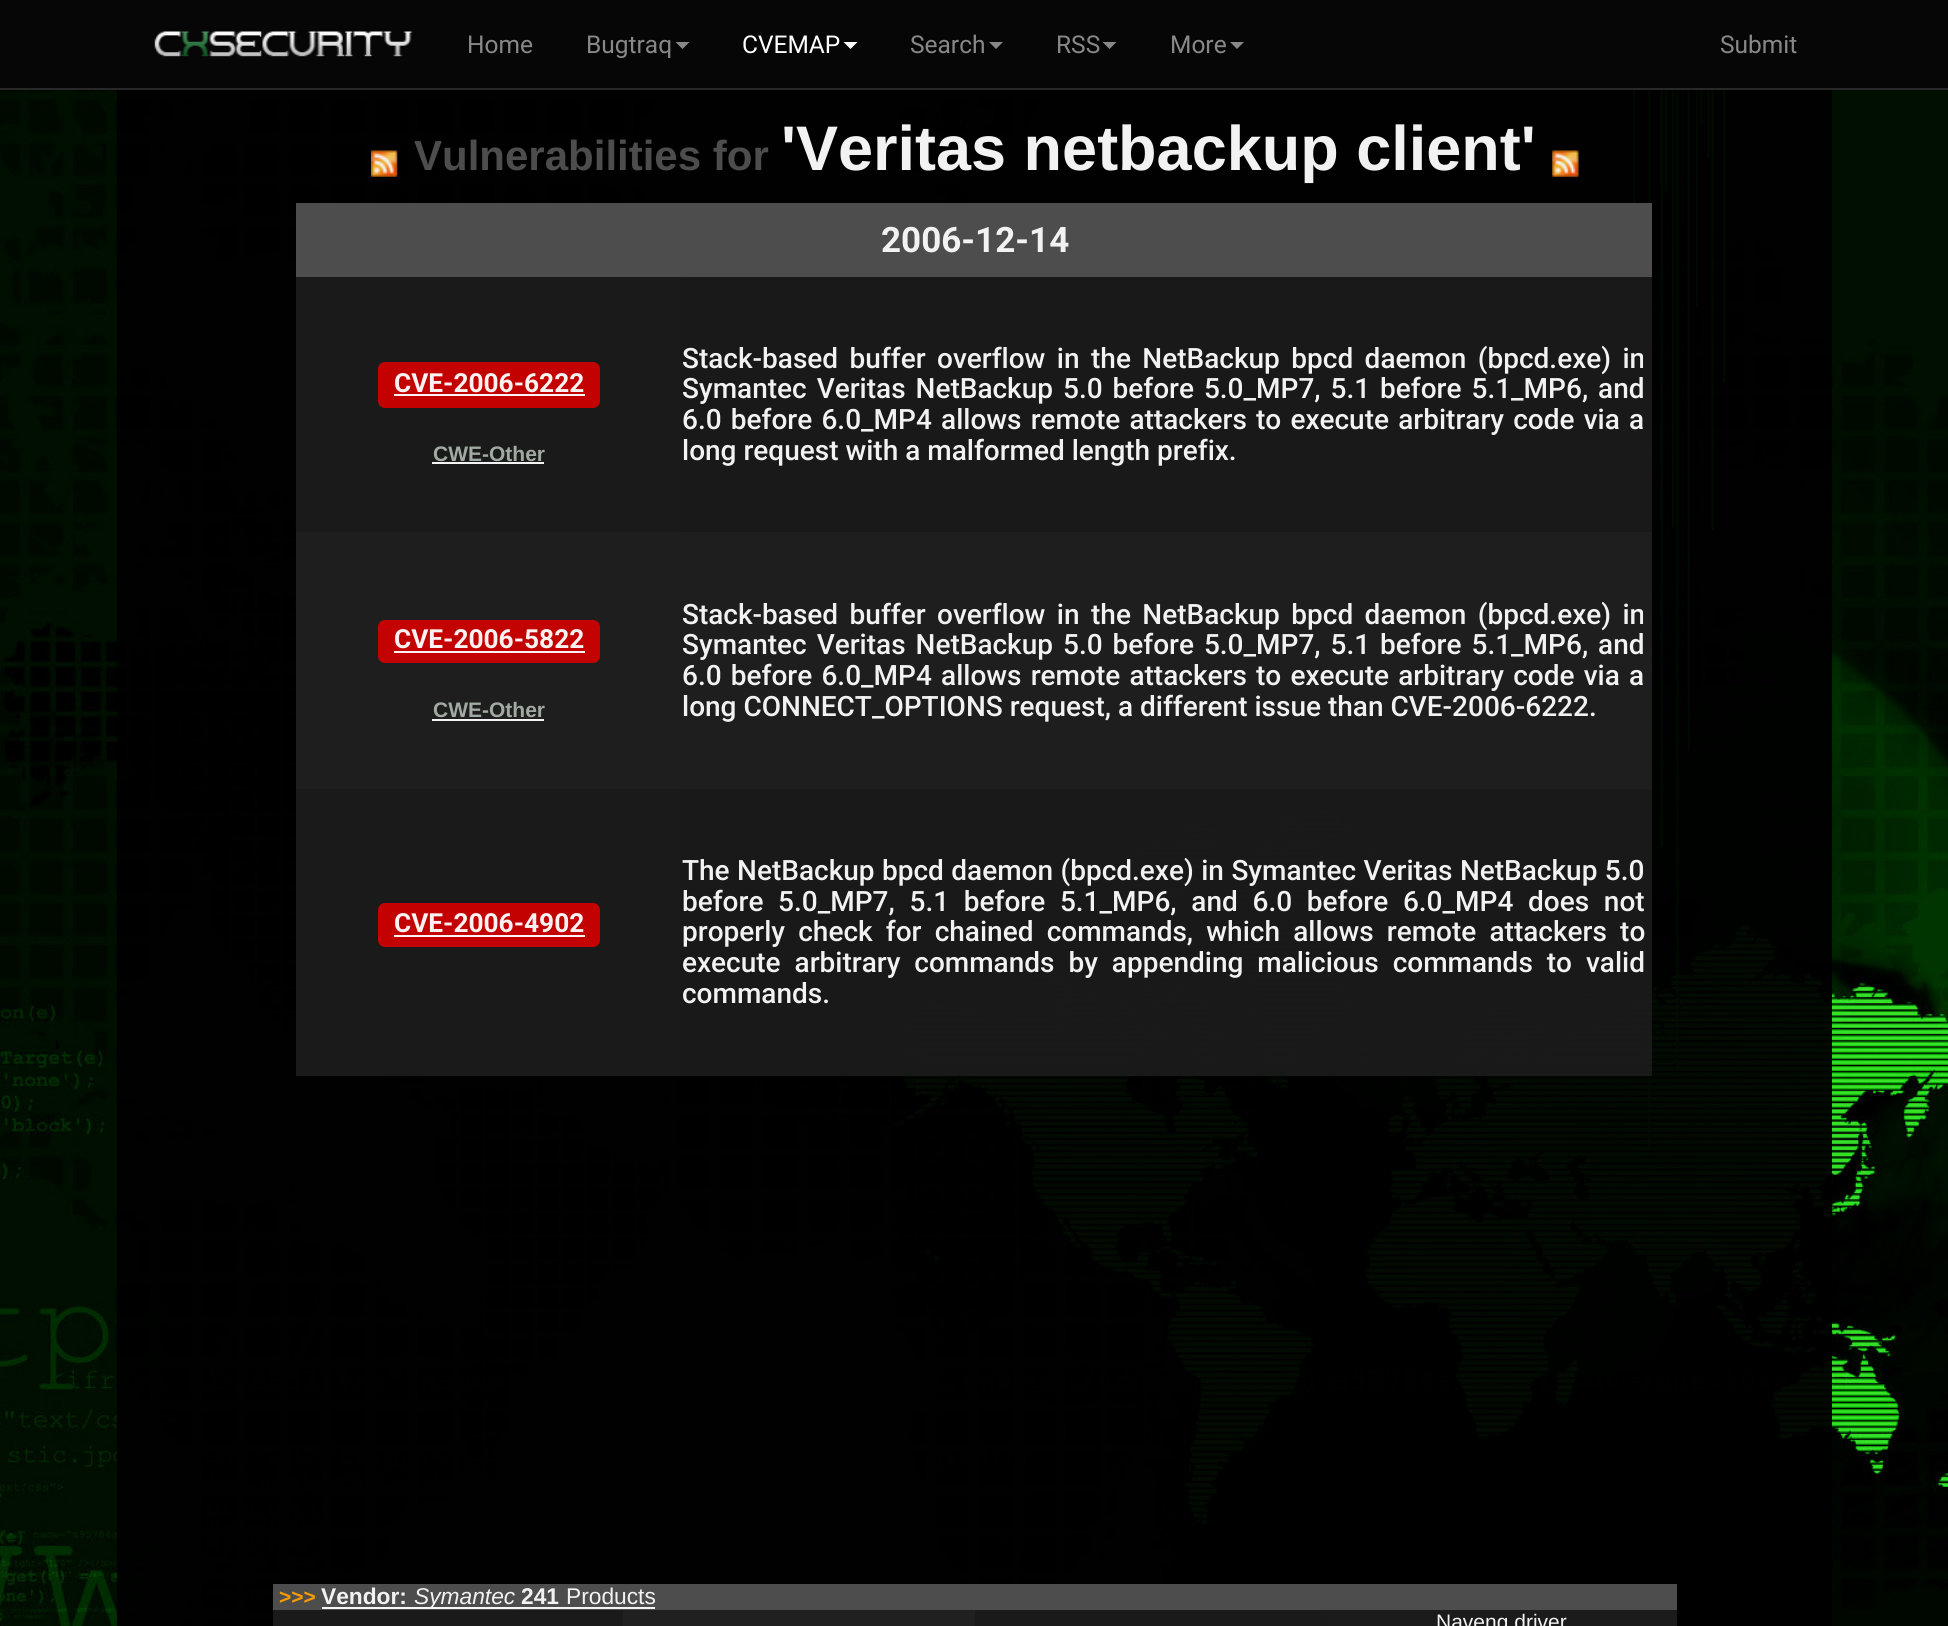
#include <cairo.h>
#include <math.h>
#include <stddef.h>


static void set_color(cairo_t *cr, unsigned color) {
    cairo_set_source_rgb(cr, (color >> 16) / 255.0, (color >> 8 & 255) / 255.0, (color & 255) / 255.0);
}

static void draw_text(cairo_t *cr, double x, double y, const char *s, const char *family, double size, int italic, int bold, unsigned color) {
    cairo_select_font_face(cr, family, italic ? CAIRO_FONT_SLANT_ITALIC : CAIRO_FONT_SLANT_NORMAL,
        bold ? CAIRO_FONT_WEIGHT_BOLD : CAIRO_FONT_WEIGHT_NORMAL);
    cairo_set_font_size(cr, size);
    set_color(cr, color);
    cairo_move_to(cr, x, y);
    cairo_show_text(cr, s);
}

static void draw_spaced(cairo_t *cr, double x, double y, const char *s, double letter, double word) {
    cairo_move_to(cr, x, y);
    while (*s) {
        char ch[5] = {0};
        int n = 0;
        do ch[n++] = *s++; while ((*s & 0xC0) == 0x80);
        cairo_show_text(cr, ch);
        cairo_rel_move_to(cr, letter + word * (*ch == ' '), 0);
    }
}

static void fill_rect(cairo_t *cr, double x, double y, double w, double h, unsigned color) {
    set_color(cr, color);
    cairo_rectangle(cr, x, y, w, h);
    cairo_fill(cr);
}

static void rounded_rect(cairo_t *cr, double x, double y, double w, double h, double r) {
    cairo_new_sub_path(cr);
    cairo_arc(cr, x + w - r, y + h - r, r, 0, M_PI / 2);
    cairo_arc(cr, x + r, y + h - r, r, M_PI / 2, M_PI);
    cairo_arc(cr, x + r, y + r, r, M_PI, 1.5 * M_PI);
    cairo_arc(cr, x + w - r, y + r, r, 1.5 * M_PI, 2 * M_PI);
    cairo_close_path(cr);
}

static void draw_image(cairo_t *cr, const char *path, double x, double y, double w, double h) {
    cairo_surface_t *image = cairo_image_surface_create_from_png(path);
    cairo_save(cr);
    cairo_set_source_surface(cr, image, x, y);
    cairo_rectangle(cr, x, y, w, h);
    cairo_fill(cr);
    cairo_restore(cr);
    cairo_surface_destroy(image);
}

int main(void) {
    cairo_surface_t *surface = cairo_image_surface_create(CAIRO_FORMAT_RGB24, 1948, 1626);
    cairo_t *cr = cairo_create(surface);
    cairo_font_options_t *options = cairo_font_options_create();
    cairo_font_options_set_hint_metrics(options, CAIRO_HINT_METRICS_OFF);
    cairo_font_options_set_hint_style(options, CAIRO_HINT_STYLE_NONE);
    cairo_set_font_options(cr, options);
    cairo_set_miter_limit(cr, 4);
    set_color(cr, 0xFFFFFF);
    cairo_paint(cr);
    draw_image(cr, "assets/img1.png", 0, 90, 1948, 1536);
    fill_rect(cr, 0, 0, 1948, 88, 0x060606);
    fill_rect(cr, 0, 88, 1948, 2, 0x282828);
    draw_image(cr, "assets/img2.png", 154, 31, 259, 26);
    draw_text(cr, 467, 53, "Home", "Roboto", 24.5, 0, 0, 0x888888);
    draw_text(cr, 586, 53, "Bugtraq", "Roboto", 24.5, 0, 0, 0x888888);
    cairo_new_path(cr);
    cairo_move_to(cr, 675.5, 42);
    cairo_line_to(cr, 689.5, 42);
    cairo_line_to(cr, 682.5, 49);
    cairo_close_path(cr);
    cairo_fill(cr);
    draw_text(cr, 742, 53, "CVEMAP", "Roboto", 24.5, 0, 0, 0xFFFFFF);
    cairo_new_path(cr);
    cairo_move_to(cr, 843.5, 42);
    cairo_line_to(cr, 857.5, 42);
    cairo_line_to(cr, 850.5, 49);
    cairo_close_path(cr);
    cairo_fill(cr);
    draw_text(cr, 910, 53, "Search", "Roboto", 24.5, 0, 0, 0x888888);
    cairo_new_path(cr);
    cairo_move_to(cr, 989, 42);
    cairo_line_to(cr, 1003, 42);
    cairo_line_to(cr, 996, 49);
    cairo_close_path(cr);
    cairo_fill(cr);
    draw_text(cr, 1056, 53, "RSS", "Roboto", 24.5, 0, 0, 0x888888);
    cairo_new_path(cr);
    cairo_move_to(cr, 1102.5, 42);
    cairo_line_to(cr, 1116.5, 42);
    cairo_line_to(cr, 1109.5, 49);
    cairo_close_path(cr);
    cairo_fill(cr);
    draw_text(cr, 1170, 53, "More", "Roboto", 24.5, 0, 0, 0x888888);
    cairo_new_path(cr);
    cairo_move_to(cr, 1230, 42);
    cairo_line_to(cr, 1244, 42);
    cairo_line_to(cr, 1237, 49);
    cairo_close_path(cr);
    cairo_fill(cr);
    draw_text(cr, 1720, 53, "Submit", "Roboto", 24.5, 0, 0, 0x888888);
    cairo_set_source_rgba(cr, 0, 0, 0, 0.95);
    cairo_rectangle(cr, 117, 90, 77, 1536);
    cairo_fill(cr);
    cairo_rectangle(cr, 194, 90, 1561, 1536);
    cairo_fill(cr);
    draw_image(cr, "assets/img3.png", 371, 150, 27, 27);
    draw_text(cr, 414, 170, "Vulnerabilities for", "Liberation Sans", 42, 0, 1, 0x4C4D4C);
    draw_text(cr, 781, 170, "'Veritas netbackup client'", "Liberation Sans", 63, 0, 1, 0xF2F2F2);
    draw_image(cr, "assets/img4.png", 1552, 150, 27, 27);
    cairo_set_source_rgba(cr, 0.314, 0.318, 0.314, 0.95);
    cairo_rectangle(cr, 296, 203, 1356, 74);
    cairo_fill(cr);
    draw_text(cr, 881, 252, "2006-12-14", "Roboto", 35, 0, 1, 0xF2F2F2);
    fill_rect(cr, 296, 277, 385, 255, 0x1A1A1A);
    set_color(cr, 0xC30101);
    rounded_rect(cr, 378, 362, 222, 46, 7);
    cairo_fill(cr);
    draw_text(cr, 394, 392, "CVE-2006-6222", "Roboto", 26.25, 0, 1, 0xFCF2F2);
    fill_rect(cr, 394, 394, 191, 2, 0xFCF2F2);
    draw_text(cr, 433, 461, "CWE-Other", "Liberation Sans", 21, 0, 1, 0xA1AAA1);
    fill_rect(cr, 432, 462, 112, 2, 0xF4F4F4);
    cairo_set_source_rgba(cr, 0.106, 0.106, 0.106, 0.95);
    cairo_rectangle(cr, 681, 277, 962, 255);
    cairo_fill(cr);
    cairo_select_font_face(cr, "Roboto Medium", CAIRO_FONT_SLANT_NORMAL, CAIRO_FONT_WEIGHT_NORMAL);
    cairo_set_font_size(cr, 28);
    set_color(cr, 0xF2F2F2);
    draw_spaced(cr, 682, 368, "Stack-based buffer overflow in the NetBackup bpcd daemon (bpcd.exe) in", 0, 4.5);
    draw_spaced(cr, 682, 398, "Symantec Veritas NetBackup 5.0 before 5.0_MP7, 5.1 before 5.1_MP6, and", 0, 3);
    draw_spaced(cr, 682, 429, "6.0 before 6.0_MP4 allows remote attackers to execute arbitrary code via a", 0, 2.25);
    draw_text(cr, 682, 460, "long request with a malformed length prefix.", "Roboto Medium", 28, 0, 0, 0xF2F2F2);
    cairo_set_source_rgba(cr, 0.106, 0.106, 0.106, 0.95);
    cairo_rectangle(cr, 1643, 277, 9, 255);
    cairo_fill(cr);
    fill_rect(cr, 296, 532, 385, 257, 0x1E1E1E);
    set_color(cr, 0xC30202);
    rounded_rect(cr, 378, 620, 222, 43, 7);
    cairo_fill(cr);
    draw_text(cr, 394, 648, "CVE-2006-5822", "Roboto", 26.25, 0, 1, 0xFCF2F2);
    fill_rect(cr, 394, 651, 191, 2, 0xFCF2F2);
    draw_text(cr, 433, 717, "CWE-Other", "Liberation Sans", 21, 0, 1, 0xA1AAA1);
    fill_rect(cr, 432, 719, 112, 2, 0xF4F4F4);
    cairo_set_source_rgba(cr, 0.125, 0.125, 0.125, 0.95);
    cairo_rectangle(cr, 681, 532, 962, 257);
    cairo_fill(cr);
    cairo_select_font_face(cr, "Roboto Medium", CAIRO_FONT_SLANT_NORMAL, CAIRO_FONT_WEIGHT_NORMAL);
    cairo_set_font_size(cr, 28);
    set_color(cr, 0xF2F2F2);
    draw_spaced(cr, 682, 624, "Stack-based buffer overflow in the NetBackup bpcd daemon (bpcd.exe) in", 0, 4.5);
    draw_spaced(cr, 682, 654, "Symantec Veritas NetBackup 5.0 before 5.0_MP7, 5.1 before 5.1_MP6, and", 0, 3);
    draw_spaced(cr, 682, 685, "6.0 before 6.0_MP4 allows remote attackers to execute arbitrary code via a", 0, 2.25);
    draw_text(cr, 682, 716, "long CONNECT_OPTIONS request, a different issue than CVE-2006-6222.", "Roboto Medium", 28, 0, 0, 0xF2F2F2);
    cairo_set_source_rgba(cr, 0.125, 0.125, 0.125, 0.95);
    cairo_rectangle(cr, 1643, 532, 9, 257);
    cairo_fill(cr);
    fill_rect(cr, 296, 789, 385, 287, 0x1A1A1A);
    set_color(cr, 0xC30101);
    rounded_rect(cr, 378, 903, 222, 44, 7);
    cairo_fill(cr);
    draw_text(cr, 394, 932, "CVE-2006-4902", "Roboto", 26.25, 0, 1, 0xFCF2F2);
    fill_rect(cr, 394, 935, 191, 2, 0xFCF2F2);
    cairo_set_source_rgba(cr, 0.106, 0.106, 0.106, 0.95);
    cairo_rectangle(cr, 681, 789, 962, 287);
    cairo_fill(cr);
    cairo_select_font_face(cr, "Roboto Medium", CAIRO_FONT_SLANT_NORMAL, CAIRO_FONT_WEIGHT_NORMAL);
    cairo_set_font_size(cr, 28);
    set_color(cr, 0xF2F2F2);
    draw_spaced(cr, 682, 880, "The NetBackup bpcd daemon (bpcd.exe) in Symantec Veritas NetBackup 5.0", 0, 0.5);
    cairo_set_source_rgba(cr, 0.106, 0.106, 0.106, 0.95);
    cairo_rectangle(cr, 1643, 789, 9, 287);
    cairo_fill(cr);
    set_color(cr, 0xF2F2F2);
    draw_spaced(cr, 682, 911, "before 5.0_MP7, 5.1 before 5.1_MP6, and 6.0 before 6.0_MP4 does not", 0, 7.75);
    draw_spaced(cr, 682, 941, "properly check for chained commands, which allows remote attackers to", 0, 6.25);
    draw_spaced(cr, 682, 972, "execute arbitrary commands by appending malicious commands to valid", 0, 7);
    draw_text(cr, 682, 1003, "commands.", "Roboto Medium", 28, 0, 0, 0xF2F2F2);
    fill_rect(cr, 273, 1584, 1404, 26, 0x4C4D4C);
    draw_text(cr, 279, 1604, ">>>", "Liberation Sans", 21, 0, 1, 0xF69B04);
    draw_text(cr, 321, 1604, "Vendor:", "Liberation Sans", 22.75, 0, 1, 0xF2F2F2);
    fill_rect(cr, 322, 1607, 193, 2, 0xF6F6F6);
    draw_text(cr, 414, 1604, "Symantec", "Liberation Sans", 22.75, 1, 0, 0xF2F2F2);
    fill_rect(cr, 515, 1607, 140, 2, 0xF2F3F2);
    draw_text(cr, 521, 1604, "241", "Liberation Sans", 22.75, 0, 1, 0xF2F2F2);
    draw_text(cr, 566, 1604, "Products", "Liberation Sans", 22.75, 0, 0, 0xF2F2F2);
    fill_rect(cr, 273, 1610, 1052, 16, 0x1A1A1A);
    fill_rect(cr, 623, 1610, 352, 16, 0x202020);
    fill_rect(cr, 1325, 1610, 352, 16, 0x1B1B1B);
    draw_text(cr, 1436, 1629, "Naveng driver", "Liberation Sans", 21, 0, 0, 0xF2F2F2);
    cairo_set_source_rgba(cr, 0, 0, 0, 0.95);
    cairo_rectangle(cr, 1755, 90, 77, 1536);
    cairo_fill(cr);
    cairo_surface_write_to_png(surface, "output.png");
    cairo_font_options_destroy(options);
    cairo_destroy(cr);
    cairo_surface_destroy(surface);
    return 0;
}
